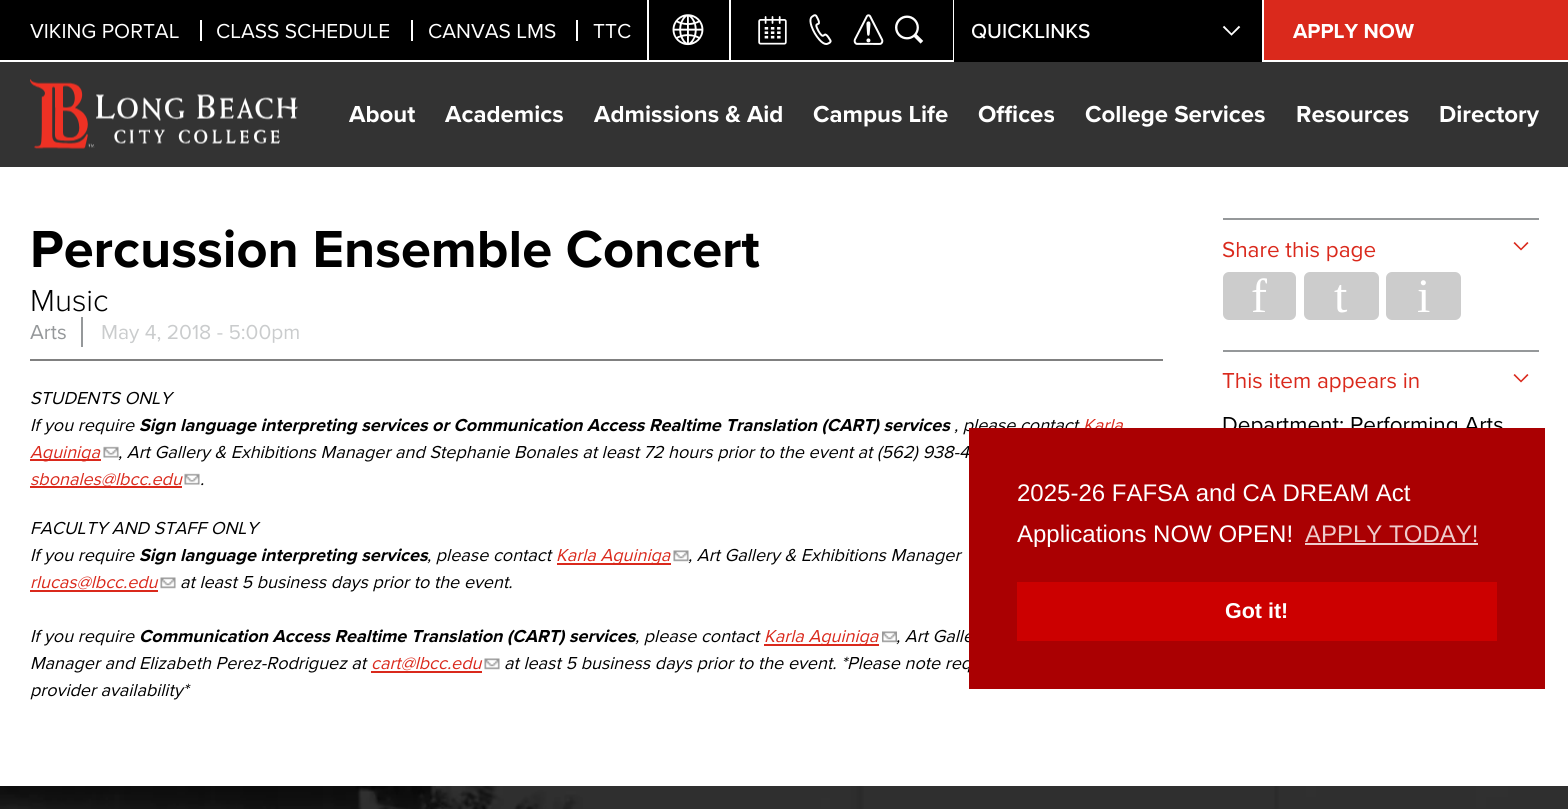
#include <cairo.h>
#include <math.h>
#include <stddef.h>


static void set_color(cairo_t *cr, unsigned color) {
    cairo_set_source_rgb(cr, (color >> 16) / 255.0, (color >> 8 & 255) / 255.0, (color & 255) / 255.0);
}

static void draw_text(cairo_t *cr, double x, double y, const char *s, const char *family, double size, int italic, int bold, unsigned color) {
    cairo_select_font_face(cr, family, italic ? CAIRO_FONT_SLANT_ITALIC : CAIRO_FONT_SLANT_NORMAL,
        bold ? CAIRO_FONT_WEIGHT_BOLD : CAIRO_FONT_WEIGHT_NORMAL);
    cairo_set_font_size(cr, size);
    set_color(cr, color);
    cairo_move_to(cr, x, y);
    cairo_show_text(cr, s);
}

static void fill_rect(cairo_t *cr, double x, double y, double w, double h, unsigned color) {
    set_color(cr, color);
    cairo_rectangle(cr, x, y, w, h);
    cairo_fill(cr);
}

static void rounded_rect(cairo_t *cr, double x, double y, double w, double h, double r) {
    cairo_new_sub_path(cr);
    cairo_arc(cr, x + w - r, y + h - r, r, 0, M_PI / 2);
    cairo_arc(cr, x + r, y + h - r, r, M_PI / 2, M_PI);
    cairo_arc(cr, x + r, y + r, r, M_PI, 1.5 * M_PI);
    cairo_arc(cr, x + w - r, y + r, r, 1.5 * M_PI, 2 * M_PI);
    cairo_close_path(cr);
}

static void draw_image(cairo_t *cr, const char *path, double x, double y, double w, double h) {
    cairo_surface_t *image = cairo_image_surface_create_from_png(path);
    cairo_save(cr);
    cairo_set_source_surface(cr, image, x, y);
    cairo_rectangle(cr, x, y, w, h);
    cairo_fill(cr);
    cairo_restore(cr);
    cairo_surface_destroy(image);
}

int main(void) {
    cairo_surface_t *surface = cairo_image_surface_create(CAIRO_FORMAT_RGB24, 1568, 809);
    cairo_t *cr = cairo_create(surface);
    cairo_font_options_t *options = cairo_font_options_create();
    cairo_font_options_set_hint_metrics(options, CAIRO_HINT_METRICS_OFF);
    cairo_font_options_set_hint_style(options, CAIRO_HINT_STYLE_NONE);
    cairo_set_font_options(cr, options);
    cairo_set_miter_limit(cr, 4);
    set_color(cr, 0xFFFFFF);
    cairo_paint(cr);
    fill_rect(cr, 0, 62, 1568, 105, 0x333333);
    fill_rect(cr, 0, 0, 953, 60, 0x000000);
    fill_rect(cr, 647, 0, 2, 60, 0xFFFFFF);
    fill_rect(cr, 729, 0, 2, 60, 0xFFFFFF);
    draw_image(cr, "assets/img1.png", 672, 14, 32, 32);
    draw_image(cr, "assets/img2.png", 758, 16, 29, 29);
    draw_image(cr, "assets/img3.png", 809, 14, 23, 31);
    draw_image(cr, "assets/img4.png", 853, 14, 31, 31);
    draw_text(cr, 895, 48, "?", "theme", 42, 0, 0, 0xFFFFFF);
    draw_text(cr, 30, 38, "VIKING PORTAL", "Proxima Nova", 21, 0, 0, 0xFFFFFF);
    fill_rect(cr, 200, 20, 2, 21, 0xFFFFFF);
    draw_text(cr, 216, 38, "CLASS SCHEDULE", "Proxima Nova", 21, 0, 0, 0xFFFFFF);
    fill_rect(cr, 411, 20, 2, 21, 0xFFFFFF);
    draw_text(cr, 428, 38, "CANVAS LMS", "Proxima Nova", 21, 0, 0, 0xFFFFFF);
    fill_rect(cr, 576, 20, 2, 21, 0xFFFFFF);
    draw_text(cr, 593, 38, "TTC", "Proxima Nova", 21, 0, 0, 0xFFFFFF);
    fill_rect(cr, 1264, 0, 304, 60, 0xDA291C);
    draw_text(cr, 1293, 38, "APPLY NOW", "Proxima Nova", 21, 0, 1, 0xFFFFFF);
    fill_rect(cr, 954, 0, 308, 62, 0x000000);
    draw_text(cr, 971, 38, "QUICKLINKS", "Proxima Nova Medium", 21, 0, 0, 0xFFFFFF);
    draw_image(cr, "assets/img5.png", 1222, 25, 19, 11);
    draw_image(cr, "assets/img6.png", 30, 79, 268, 70);
    draw_text(cr, 349, 122, "About", "Proxima Nova", 24, 0, 1, 0xFFFFFF);
    draw_text(cr, 445, 122, "Academics", "Proxima Nova", 24, 0, 1, 0xFFFFFF);
    draw_text(cr, 594, 122, "Admissions & Aid", "Proxima Nova", 24, 0, 1, 0xFFFFFF);
    draw_text(cr, 813, 122, "Campus Life", "Proxima Nova", 24, 0, 1, 0xFFFFFF);
    draw_text(cr, 978, 122, "Offices", "Proxima Nova", 24, 0, 1, 0xFFFFFF);
    draw_text(cr, 1085, 122, "College Services", "Proxima Nova", 24, 0, 1, 0xFFFFFF);
    draw_text(cr, 1296, 122, "Resources", "Proxima Nova", 24, 0, 1, 0xFFFFFF);
    draw_text(cr, 1439, 122, "Directory", "Proxima Nova", 24, 0, 1, 0xFFFFFF);
    draw_text(cr, 30, 267, "Percussion Ensemble Concert", "Proxima Nova", 54, 0, 1, 0x000000);
    draw_text(cr, 30, 311, "Music", "Proxima Nova Light", 31.5, 0, 0, 0x000000);
    draw_text(cr, 30, 339, "Arts", "Proxima Nova", 21, 0, 0, 0x95989A);
    fill_rect(cr, 81, 317, 2, 30, 0x95989A);
    draw_text(cr, 101, 339, "May 4, 2018 - 5:00pm", "Proxima Nova", 21, 0, 0, 0xCACCCD);
    fill_rect(cr, 30, 359, 1133, 2, 0x808080);
    draw_text(cr, 30, 404, "STUDENTS ONLY", "Proxima Nova", 18, 1, 0, 0x000000);
    draw_text(cr, 30, 431, "If you require", "Proxima Nova", 18, 1, 0, 0x000000);
    draw_text(cr, 139, 431, "Sign language interpreting services or Communication Access Realtime Translation (CART) services", "Proxima Nova", 18, 1, 1, 0x000000);
    draw_text(cr, 954, 431, ", please contact", "Proxima Nova", 18, 1, 0, 0x000000);
    draw_text(cr, 1083, 431, "Karla", "Proxima Nova", 18, 1, 0, 0xDA291C);
    fill_rect(cr, 30, 459, 71, 2, 0xDA291C);
    draw_text(cr, 30, 458, "Aguiniga", "Proxima Nova", 18, 1, 0, 0xDA291C);
    draw_image(cr, "assets/img7.png", 103, 446, 16, 12);
    draw_text(cr, 118, 458, ", Art Gallery & Exhibitions Manager and Stephanie Bonales at least 72 hours prior to the event at (562) 938-4", "Proxima Nova", 18, 1, 0, 0x000000);
    fill_rect(cr, 30, 486, 152, 2, 0xDA291C);
    draw_text(cr, 30, 485, "sbonales@lbcc.edu", "Proxima Nova", 18, 1, 0, 0xDA291C);
    draw_image(cr, "assets/img7.png", 184, 473, 16, 12);
    draw_text(cr, 200, 485, ".", "Proxima Nova", 18, 1, 0, 0x000000);
    draw_text(cr, 30, 534, "FACULTY AND STAFF ONLY", "Proxima Nova", 18, 1, 0, 0x000000);
    draw_text(cr, 30, 561, "If you require", "Proxima Nova", 18, 1, 0, 0x000000);
    draw_text(cr, 139, 561, "Sign language interpreting services", "Proxima Nova", 18, 1, 1, 0x000000);
    draw_text(cr, 427, 561, ", please contact", "Proxima Nova", 18, 1, 0, 0x000000);
    fill_rect(cr, 557, 563, 114, 2, 0xDA291C);
    draw_text(cr, 556, 561, "Karla Aguiniga", "Proxima Nova", 18, 1, 0, 0xDA291C);
    draw_image(cr, "assets/img8.png", 673, 550, 16, 12);
    draw_text(cr, 688, 561, ", Art Gallery & Exhibitions Manager", "Proxima Nova", 18, 1, 0, 0x000000);
    draw_text(cr, 30, 588, "rlucas@lbcc.edu", "Proxima Nova", 18, 1, 0, 0xDA291C);
    fill_rect(cr, 30, 590, 128, 2, 0xDA291C);
    draw_image(cr, "assets/img9.png", 160, 577, 16, 12);
    draw_text(cr, 180, 588, "at least 5 business days prior to the event.", "Proxima Nova", 18, 1, 0, 0x000000);
    draw_text(cr, 30, 642, "If you require", "Proxima Nova", 18, 1, 0, 0x000000);
    draw_text(cr, 139, 642, "Communication Access Realtime Translation (CART) services", "Proxima Nova", 18, 1, 1, 0x000000);
    draw_text(cr, 635, 642, ", please contact", "Proxima Nova", 18, 1, 0, 0x000000);
    fill_rect(cr, 764, 644, 115, 2, 0xDA291C);
    draw_text(cr, 764, 642, "Karla Aguiniga", "Proxima Nova", 18, 1, 0, 0xDA291C);
    draw_image(cr, "assets/img10.png", 882, 631, 15, 12);
    draw_text(cr, 896, 642, ", Art Galle", "Proxima Nova", 18, 1, 0, 0x000000);
    draw_text(cr, 30, 669, "Manager and Elizabeth Perez-Rodriguez at", "Proxima Nova", 18, 1, 0, 0x000000);
    draw_text(cr, 371, 669, "cart@lbcc.edu", "Proxima Nova", 18, 1, 0, 0xDA291C);
    fill_rect(cr, 371, 671, 111, 2, 0xDA291C);
    draw_image(cr, "assets/img9.png", 484, 658, 16, 12);
    draw_text(cr, 504, 669, "at least 5 business days prior to the event. *Please note req", "Proxima Nova", 18, 1, 0, 0x000000);
    draw_text(cr, 30, 696, "provider availability*", "Proxima Nova", 18, 1, 0, 0x000000);
    fill_rect(cr, 1223, 218, 316, 2, 0x95989A);
    draw_text(cr, 1222, 257, "Share this page", "Proxima Nova", 22.5, 0, 0, 0xDA291C);
    draw_image(cr, "assets/img11.png", 1513, 242, 16, 9);
    set_color(cr, 0xCCCCCC);
    rounded_rect(cr, 1223, 272, 73, 48, 6);
    cairo_fill(cr);
    draw_text(cr, 1251, 312, "f", "Liberation Serif", 48, 0, 0, 0xFFFFFF);
    set_color(cr, 0xCCCCCC);
    rounded_rect(cr, 1304, 272, 75, 48, 6);
    cairo_fill(cr);
    draw_text(cr, 1334, 312, "t", "Liberation Serif", 48, 0, 0, 0xFFFFFF);
    set_color(cr, 0xCCCCCC);
    rounded_rect(cr, 1386, 272, 75, 48, 6);
    cairo_fill(cr);
    draw_text(cr, 1417, 312, "i", "Liberation Serif", 48, 0, 0, 0xFFFFFF);
    fill_rect(cr, 1223, 350, 316, 2, 0x95989A);
    draw_text(cr, 1222, 388, "This item appears in", "Proxima Nova", 22.5, 0, 0, 0xDA291C);
    draw_image(cr, "assets/img11.png", 1513, 374, 16, 9);
    draw_text(cr, 1222, 432, "Department: Performing Arts", "Proxima Nova", 22.5, 0, 0, 0x000000);
    draw_image(cr, "assets/img12.png", 0, 786, 1568, 23);
    fill_rect(cr, 969, 428, 576, 261, 0xAA0002);
    draw_text(cr, 1017, 501, "2025-26 FAFSA and CA DREAM Act", "Liberation Sans", 24, 0, 0, 0xFFFFFF);
    draw_text(cr, 1017, 542, "Applications NOW OPEN!", "Liberation Sans", 24, 0, 0, 0xFFFFFF);
    draw_text(cr, 1305, 542, "APPLY TODAY!", "Liberation Sans", 24, 0, 0, 0xEECCCC);
    fill_rect(cr, 1305, 543, 173, 2, 0xEECCCC);
    fill_rect(cr, 1017, 582, 480, 59, 0xCC0000);
    draw_text(cr, 1225, 618, "Got it!", "Liberation Sans", 21.5, 0, 1, 0xFFFFFF);
    cairo_surface_write_to_png(surface, "output.png");
    cairo_font_options_destroy(options);
    cairo_destroy(cr);
    cairo_surface_destroy(surface);
    return 0;
}
